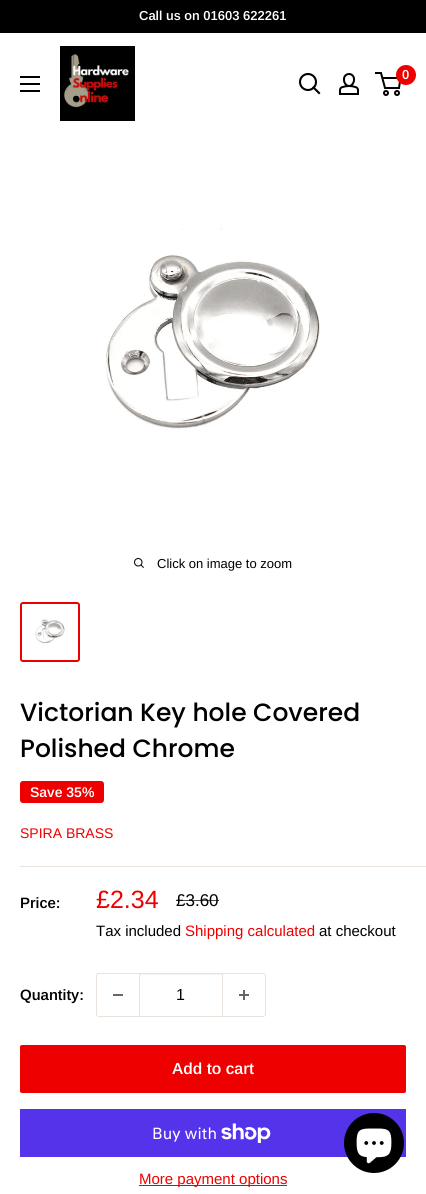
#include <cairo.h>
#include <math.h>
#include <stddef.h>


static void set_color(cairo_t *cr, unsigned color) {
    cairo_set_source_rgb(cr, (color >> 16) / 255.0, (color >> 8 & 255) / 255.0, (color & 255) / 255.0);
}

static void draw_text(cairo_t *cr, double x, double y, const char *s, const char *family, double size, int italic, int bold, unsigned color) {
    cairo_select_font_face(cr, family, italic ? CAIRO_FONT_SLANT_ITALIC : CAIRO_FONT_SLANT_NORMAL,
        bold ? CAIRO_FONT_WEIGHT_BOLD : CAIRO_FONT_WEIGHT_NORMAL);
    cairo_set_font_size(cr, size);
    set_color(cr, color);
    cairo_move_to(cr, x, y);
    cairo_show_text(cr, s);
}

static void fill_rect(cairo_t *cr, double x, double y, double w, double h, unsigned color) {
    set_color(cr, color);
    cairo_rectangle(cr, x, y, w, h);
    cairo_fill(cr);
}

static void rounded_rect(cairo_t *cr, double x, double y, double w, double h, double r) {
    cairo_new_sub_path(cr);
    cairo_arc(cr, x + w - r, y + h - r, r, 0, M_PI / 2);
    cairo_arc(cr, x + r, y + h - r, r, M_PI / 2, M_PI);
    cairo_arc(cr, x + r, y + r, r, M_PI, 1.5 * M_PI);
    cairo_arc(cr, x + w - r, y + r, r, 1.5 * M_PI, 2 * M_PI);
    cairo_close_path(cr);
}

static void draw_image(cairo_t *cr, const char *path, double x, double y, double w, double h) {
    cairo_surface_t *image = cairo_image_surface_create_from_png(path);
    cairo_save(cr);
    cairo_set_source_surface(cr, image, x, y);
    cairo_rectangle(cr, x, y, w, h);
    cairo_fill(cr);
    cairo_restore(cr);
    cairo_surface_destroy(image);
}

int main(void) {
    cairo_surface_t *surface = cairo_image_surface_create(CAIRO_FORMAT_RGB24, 426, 1194);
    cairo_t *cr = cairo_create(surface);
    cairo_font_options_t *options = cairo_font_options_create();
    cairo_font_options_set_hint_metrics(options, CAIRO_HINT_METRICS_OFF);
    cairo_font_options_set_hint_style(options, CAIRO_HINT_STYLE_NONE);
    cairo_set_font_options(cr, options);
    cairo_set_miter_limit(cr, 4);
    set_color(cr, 0xFFFFFF);
    cairo_paint(cr);
    fill_rect(cr, 0, 0, 426, 33, 0x000000);
    draw_text(cr, 139, 20, "Call us on 01603 622261", "Arimo SemiBold", 13, 0, 0, 0xFFFFFF);
    draw_image(cr, "assets/img1.png", 60, 46, 75, 75);
    cairo_new_path(cr);
    cairo_move_to(cr, 319, 93);
    cairo_line_to(cr, 313.5, 87.5);
    set_color(cr, 0x000000);
    cairo_set_line_width(cr, 2.1);
    cairo_set_line_cap(cr, CAIRO_LINE_CAP_SQUARE);
    cairo_stroke(cr);
    cairo_arc(cr, 308, 82, 8, 0, 2 * M_PI);
    cairo_set_line_cap(cr, CAIRO_LINE_CAP_BUTT);
    cairo_stroke(cr);
    draw_image(cr, "assets/img2.png", 339, 73, 20, 22);
    cairo_arc(cr, 386, 93, 2, 0, 2 * M_PI);
    cairo_set_line_width(cr, 2);
    cairo_stroke(cr);
    cairo_arc(cr, 397, 93, 2, 0, 2 * M_PI);
    cairo_stroke(cr);
    cairo_new_path(cr);
    cairo_move_to(cr, 382.5, 78);
    cairo_line_to(cr, 400.5, 78);
    cairo_line_to(cr, 399, 88);
    cairo_line_to(cr, 385, 88);
    cairo_line_to(cr, 381, 73);
    cairo_line_to(cr, 375, 73);
    cairo_stroke(cr);
    set_color(cr, 0xEE0000);
    cairo_arc(cr, 406, 75, 10, 0, 2 * M_PI);
    cairo_fill(cr);
    draw_text(cr, 402, 79, "0", "Arimo SemiBold", 13, 0, 0, 0xFFFFFF);
    draw_image(cr, "assets/img3.png", 20, 76, 20, 16);
    draw_image(cr, "assets/img4.png", 105, 228, 216, 202);
    draw_image(cr, "assets/img5.png", 134, 558, 10, 10);
    draw_text(cr, 157, 568, "Click on image to zoom", "Arimo", 13, 0, 0, 0x000000);
    rounded_rect(cr, 21, 603, 58, 58, 2);
    set_color(cr, 0xEE0000);
    cairo_stroke(cr);
    draw_image(cr, "assets/img6.png", 35, 619, 30, 25);
    draw_text(cr, 20, 721, "Victorian Key hole Covered", "Poppins Medium", 25, 0, 0, 0x000000);
    draw_text(cr, 20, 757, "Polished Chrome", "Poppins Medium", 25, 0, 0, 0x000000);
    set_color(cr, 0xEE0000);
    rounded_rect(cr, 20, 781, 84, 22, 3);
    cairo_fill(cr);
    draw_text(cr, 30, 797, "Save 35%", "Arimo SemiBold", 14, 0, 0, 0xFFFFFF);
    draw_text(cr, 20, 838, "SPIRA BRASS", "Arimo", 14, 0, 0, 0xEE0000);
    fill_rect(cr, 20, 866, 406, 1, 0xE9E2DD);
    draw_text(cr, 20, 908, "Price:", "Arimo SemiBold", 15, 0, 0, 0x000000);
    draw_text(cr, 96, 908, "£2.34", "Arimo", 25, 0, 0, 0xEE0000);
    draw_text(cr, 176, 906, "£3.60", "Arimo", 17, 0, 0, 0x000000);
    cairo_set_source_rgba(cr, 0, 0, 0, 0.7);
    cairo_rectangle(cr, 176, 900, 43, 1);
    cairo_fill(cr);
    draw_text(cr, 96, 936, "Tax included", "Arimo", 15, 0, 0, 0x000000);
    draw_text(cr, 185, 936, "Shipping calculated", "Arimo", 15, 0, 0, 0xEE0000);
    draw_text(cr, 319, 936, "at checkout", "Arimo", 15, 0, 0, 0x000000);
    draw_text(cr, 20, 1000, "Quantity:", "Arimo SemiBold", 15, 0, 0, 0x000000);
    rounded_rect(cr, 96.5, 973.5, 169, 43, 2.5);
    set_color(cr, 0xE9E2DD);
    cairo_set_line_width(cr, 1);
    cairo_stroke(cr);
    fill_rect(cr, 113, 994, 10, 2, 0x666666);
    fill_rect(cr, 140, 974, 82, 1, 0xF6F3F1);
    fill_rect(cr, 222, 974, 1, 42, 0xE9E2DD);
    fill_rect(cr, 139, 974, 1, 42, 0xE9E2DD);
    draw_text(cr, 176, 1000, "1", "Arimo", 16, 0, 0, 0x000000);
    draw_image(cr, "assets/img7.png", 239, 990, 10, 10);
    set_color(cr, 0xEE0000);
    rounded_rect(cr, 20, 1045, 386, 48, 2);
    cairo_fill(cr);
    draw_text(cr, 172, 1074, "Add to cart", "Arimo SemiBold", 16, 0, 0, 0xFFFFFF);
    fill_rect(cr, 20, 1109, 386, 48, 0x5433EB);
    draw_text(cr, 152, 1139, "Buy with", "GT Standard", 16, 0, 0, 0xFFFFFF);
    draw_image(cr, "assets/img8.png", 221, 1123, 50, 20);
    fill_rect(cr, 139, 1185, 148, 1, 0xEE0000);
    draw_text(cr, 139, 1184, "More payment options", "Arimo", 15, 0, 0, 0xEE0000);
    set_color(cr, 0x000000);
    cairo_new_path(cr);
    cairo_arc(cr, 374, 1143, 30, 0, 2 * M_PI);
    cairo_fill(cr);
    draw_image(cr, "assets/img9.png", 356, 1128, 36, 36);
    cairo_surface_write_to_png(surface, "output.png");
    cairo_font_options_destroy(options);
    cairo_destroy(cr);
    cairo_surface_destroy(surface);
    return 0;
}
